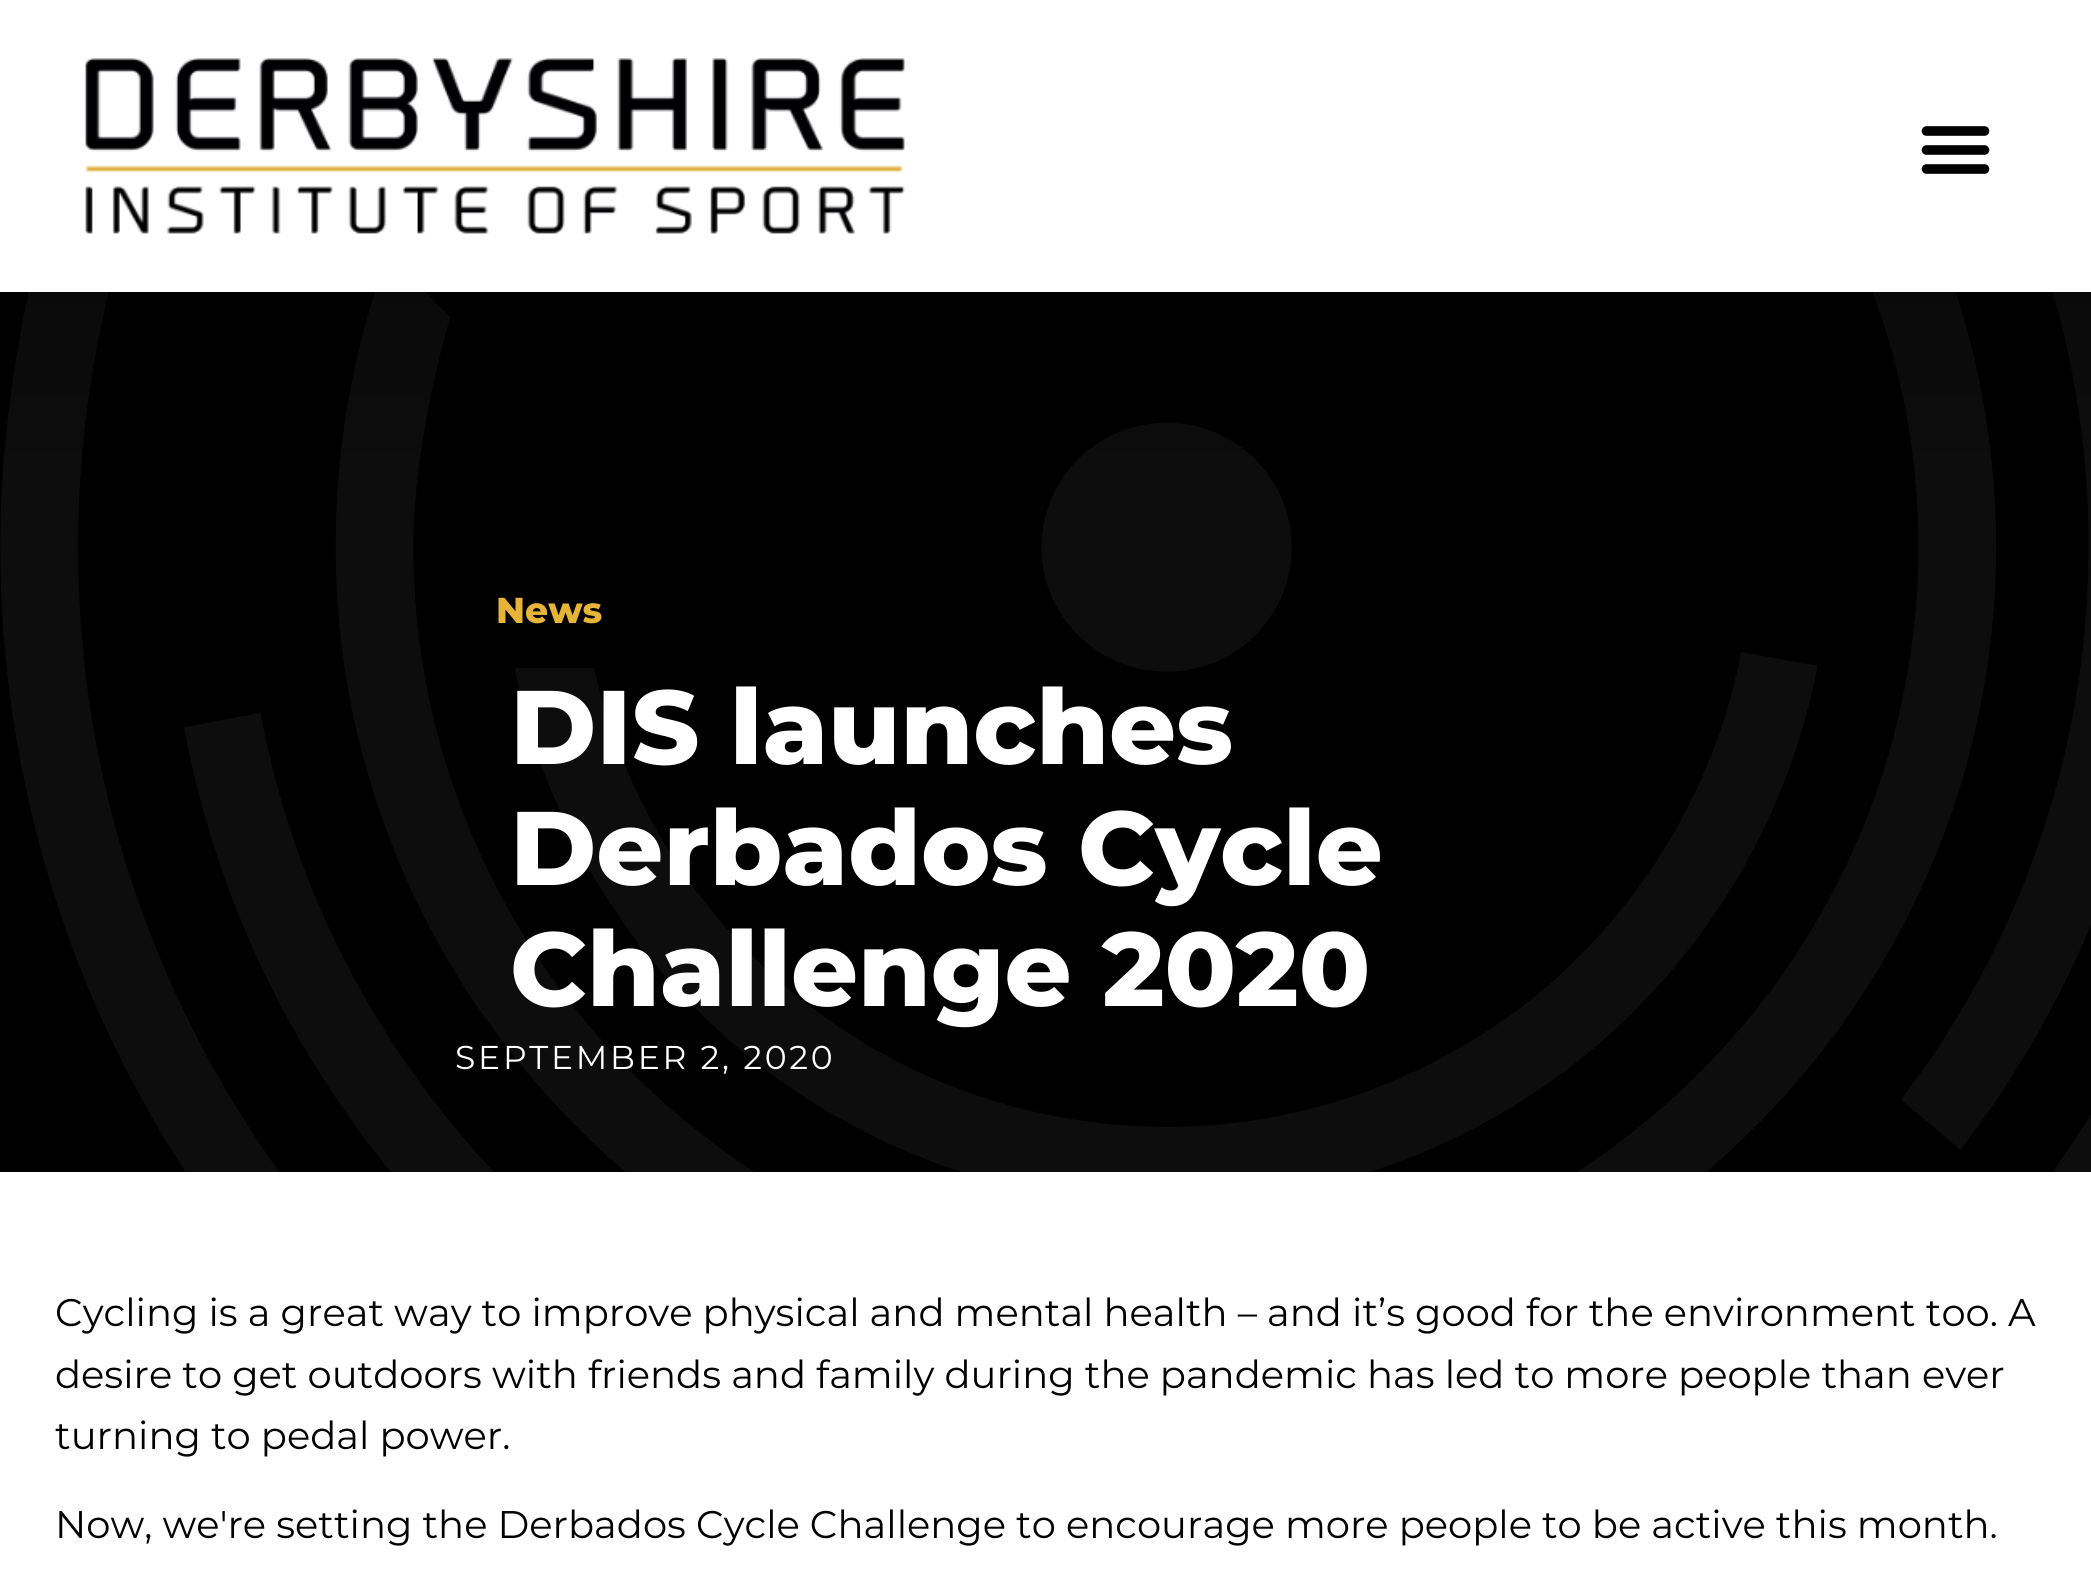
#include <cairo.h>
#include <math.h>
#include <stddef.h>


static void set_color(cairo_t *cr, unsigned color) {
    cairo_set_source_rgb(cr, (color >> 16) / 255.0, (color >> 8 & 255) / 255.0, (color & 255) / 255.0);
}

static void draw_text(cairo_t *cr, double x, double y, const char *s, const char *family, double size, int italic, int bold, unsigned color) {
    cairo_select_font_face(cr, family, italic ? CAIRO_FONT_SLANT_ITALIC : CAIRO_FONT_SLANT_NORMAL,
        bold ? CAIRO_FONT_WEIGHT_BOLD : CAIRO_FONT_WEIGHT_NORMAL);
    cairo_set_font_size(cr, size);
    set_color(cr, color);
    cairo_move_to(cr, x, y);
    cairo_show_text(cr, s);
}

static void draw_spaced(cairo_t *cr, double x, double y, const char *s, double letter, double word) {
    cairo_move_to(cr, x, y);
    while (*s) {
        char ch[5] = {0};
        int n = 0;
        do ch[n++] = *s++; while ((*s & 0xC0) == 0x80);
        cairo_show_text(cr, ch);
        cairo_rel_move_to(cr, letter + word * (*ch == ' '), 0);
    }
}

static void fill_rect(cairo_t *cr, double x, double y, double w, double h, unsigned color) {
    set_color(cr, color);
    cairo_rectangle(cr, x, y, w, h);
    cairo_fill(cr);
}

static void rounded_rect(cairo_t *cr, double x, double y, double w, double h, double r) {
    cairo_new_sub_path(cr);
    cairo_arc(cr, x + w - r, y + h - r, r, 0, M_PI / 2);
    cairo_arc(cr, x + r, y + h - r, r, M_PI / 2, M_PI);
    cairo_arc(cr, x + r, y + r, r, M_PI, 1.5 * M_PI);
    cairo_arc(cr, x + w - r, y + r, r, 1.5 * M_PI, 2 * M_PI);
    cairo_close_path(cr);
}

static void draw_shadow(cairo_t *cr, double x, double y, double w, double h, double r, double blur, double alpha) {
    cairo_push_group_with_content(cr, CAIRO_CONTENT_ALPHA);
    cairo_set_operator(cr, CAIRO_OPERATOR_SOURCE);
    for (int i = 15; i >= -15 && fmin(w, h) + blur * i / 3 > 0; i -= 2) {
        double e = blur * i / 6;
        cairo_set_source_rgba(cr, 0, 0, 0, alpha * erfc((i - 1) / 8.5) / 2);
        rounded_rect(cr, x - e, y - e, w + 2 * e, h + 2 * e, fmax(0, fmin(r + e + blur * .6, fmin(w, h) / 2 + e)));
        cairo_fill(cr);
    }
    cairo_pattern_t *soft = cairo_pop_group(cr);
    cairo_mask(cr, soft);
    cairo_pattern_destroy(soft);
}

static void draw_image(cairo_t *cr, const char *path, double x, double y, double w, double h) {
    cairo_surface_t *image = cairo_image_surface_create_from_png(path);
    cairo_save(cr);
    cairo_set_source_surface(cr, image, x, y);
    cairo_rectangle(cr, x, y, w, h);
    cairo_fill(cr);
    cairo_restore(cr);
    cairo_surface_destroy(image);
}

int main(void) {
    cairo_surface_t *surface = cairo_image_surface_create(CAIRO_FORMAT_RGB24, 2091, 1595);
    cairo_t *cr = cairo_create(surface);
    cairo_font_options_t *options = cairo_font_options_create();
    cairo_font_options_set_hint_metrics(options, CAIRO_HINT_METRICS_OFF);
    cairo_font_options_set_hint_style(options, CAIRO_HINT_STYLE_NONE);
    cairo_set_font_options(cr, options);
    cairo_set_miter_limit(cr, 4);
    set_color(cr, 0xFFFFFF);
    cairo_paint(cr);
    fill_rect(cr, 0, 292, 2091, 880, 0x000000);
    draw_image(cr, "assets/img2.png", 0, 292, 2091, 880);
    cairo_save(cr);
    cairo_set_fill_rule(cr, CAIRO_FILL_RULE_EVEN_ODD);
    cairo_new_path(cr);
    cairo_move_to(cr, 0, 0);
    cairo_line_to(cr, 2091, 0);
    cairo_line_to(cr, 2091, 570);
    cairo_line_to(cr, 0, 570);
    cairo_close_path(cr);
    cairo_move_to(cr, 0, 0);
    cairo_line_to(cr, 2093, 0);
    cairo_line_to(cr, 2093, 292);
    cairo_line_to(cr, 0, 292);
    cairo_close_path(cr);
    cairo_clip(cr);
    set_color(cr, 0x000000);
    draw_shadow(cr, -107, -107, 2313, 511, 0, 55, 0.2);
    cairo_restore(cr);
    draw_image(cr, "assets/img1.png", 85, 58, 820, 176);
    cairo_new_path(cr);
    cairo_move_to(cr, 1926.5, 169);
    cairo_line_to(cr, 1984.5, 169);
    cairo_set_line_width(cr, 9.6);
    cairo_set_line_cap(cr, CAIRO_LINE_CAP_ROUND);
    cairo_stroke(cr);
    cairo_new_path(cr);
    cairo_move_to(cr, 1926.5, 150);
    cairo_line_to(cr, 1984.5, 150);
    cairo_stroke(cr);
    cairo_new_path(cr);
    cairo_move_to(cr, 1926.5, 131);
    cairo_line_to(cr, 1984.5, 131);
    cairo_stroke(cr);
    fill_rect(cr, 514, 652, 80, 16, 0x000000);
    draw_text(cr, 496, 623, "News", "Montserrat ExtraBold", 36, 0, 0, 0xE5B439);
    draw_text(cr, 510, 764, "DIS launches", "Montserrat ExtraBold", 104.5, 0, 0, 0xFFFFFF);
    draw_text(cr, 510, 885, "Derbados Cycle", "Montserrat ExtraBold", 104.5, 0, 0, 0xFFFFFF);
    draw_text(cr, 510, 1006, "Challenge 2020", "Montserrat ExtraBold", 104.5, 0, 0, 0xFFFFFF);
    cairo_select_font_face(cr, "Montserrat", CAIRO_FONT_SLANT_NORMAL, CAIRO_FONT_WEIGHT_NORMAL);
    cairo_set_font_size(cr, 33);
    draw_spaced(cr, 455, 1069, "SEPTEMBER 2, 2020", 2.75, 0);
    draw_text(cr, 55, 1326, "Cycling is a great way to improve physical and mental health – and it’s good for the environment too. A", "Montserrat", 38.5, 0, 0, 0x000000);
    draw_text(cr, 55, 1388, "desire to get outdoors with friends and family during the pandemic has led to more people than ever", "Montserrat", 38.5, 0, 0, 0x000000);
    draw_text(cr, 55, 1449, "turning to pedal power.", "Montserrat", 38.5, 0, 0, 0x000000);
    draw_text(cr, 55, 1538, "Now, we're setting the Derbados Cycle Challenge to encourage more people to be active this month.", "Montserrat", 38.5, 0, 0, 0x000000);
    cairo_surface_write_to_png(surface, "output.png");
    cairo_font_options_destroy(options);
    cairo_destroy(cr);
    cairo_surface_destroy(surface);
    return 0;
}
